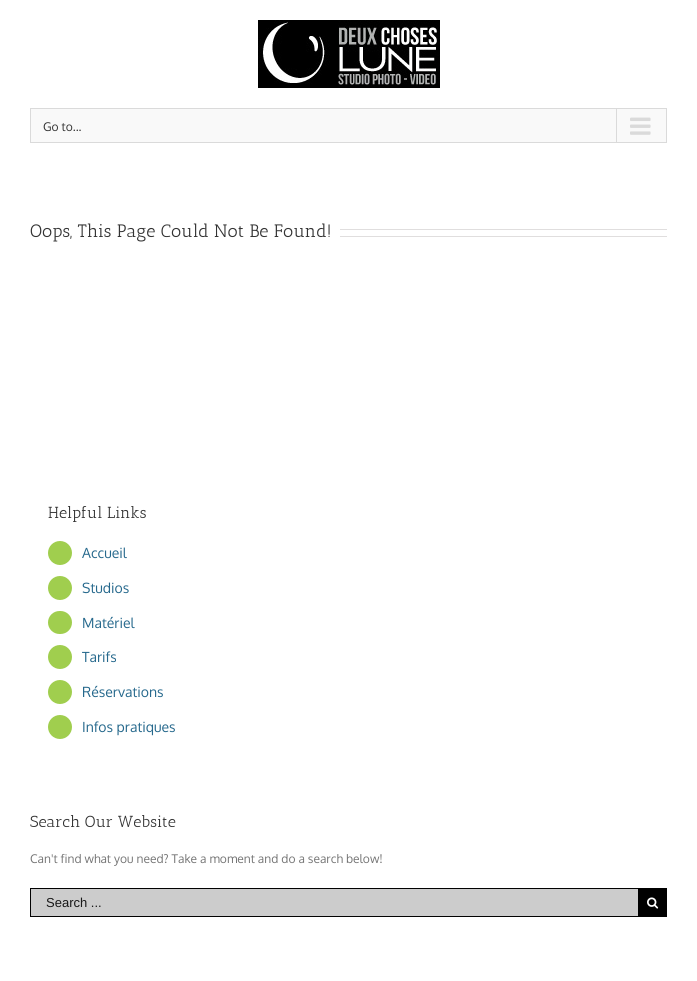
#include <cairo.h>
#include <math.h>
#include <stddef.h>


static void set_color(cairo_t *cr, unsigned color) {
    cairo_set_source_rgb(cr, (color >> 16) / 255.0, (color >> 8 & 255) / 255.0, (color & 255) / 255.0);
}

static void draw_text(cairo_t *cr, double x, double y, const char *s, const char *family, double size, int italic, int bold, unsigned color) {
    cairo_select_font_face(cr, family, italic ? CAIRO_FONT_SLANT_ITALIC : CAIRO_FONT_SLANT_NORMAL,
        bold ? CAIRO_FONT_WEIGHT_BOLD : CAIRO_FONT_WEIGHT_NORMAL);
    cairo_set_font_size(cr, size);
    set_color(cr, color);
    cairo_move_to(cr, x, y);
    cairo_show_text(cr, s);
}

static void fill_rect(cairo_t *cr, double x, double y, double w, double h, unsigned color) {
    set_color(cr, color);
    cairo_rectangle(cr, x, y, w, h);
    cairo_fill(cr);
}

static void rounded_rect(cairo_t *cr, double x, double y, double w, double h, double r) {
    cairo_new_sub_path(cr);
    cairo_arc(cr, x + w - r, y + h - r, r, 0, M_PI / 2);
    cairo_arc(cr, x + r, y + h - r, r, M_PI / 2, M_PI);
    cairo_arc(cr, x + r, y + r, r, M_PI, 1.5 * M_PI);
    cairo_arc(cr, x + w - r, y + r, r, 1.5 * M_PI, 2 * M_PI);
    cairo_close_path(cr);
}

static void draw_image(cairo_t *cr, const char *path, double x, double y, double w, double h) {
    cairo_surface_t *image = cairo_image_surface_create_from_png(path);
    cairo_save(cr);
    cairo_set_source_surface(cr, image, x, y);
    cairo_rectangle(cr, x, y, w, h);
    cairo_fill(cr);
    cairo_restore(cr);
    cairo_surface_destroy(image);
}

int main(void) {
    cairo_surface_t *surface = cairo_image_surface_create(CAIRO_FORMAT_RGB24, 697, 981);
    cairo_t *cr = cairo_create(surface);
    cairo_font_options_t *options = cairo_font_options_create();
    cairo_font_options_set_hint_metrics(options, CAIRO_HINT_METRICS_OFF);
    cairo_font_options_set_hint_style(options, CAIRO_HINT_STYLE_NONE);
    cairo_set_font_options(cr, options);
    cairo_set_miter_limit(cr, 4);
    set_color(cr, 0xFFFFFF);
    cairo_paint(cr);
    draw_image(cr, "assets/img1.png", 258, 20, 182, 68);
    set_color(cr, 0xF9F9F9);
    cairo_rectangle(cr, 30.5, 108.5, 636, 34);
    cairo_fill_preserve(cr);
    set_color(cr, 0xDADADA);
    cairo_set_line_width(cr, 1);
    cairo_stroke(cr);
    draw_text(cr, 43, 131, "Go to...", "Oxygen", 12, 0, 0, 0x333333);
    fill_rect(cr, 616, 109, 1, 33, 0xDADADA);
    draw_image(cr, "assets/img2.png", 630, 117, 21, 18);
    draw_text(cr, 30, 237, "Oops, This Page Could Not Be Found!", "Antic Slab", 18, 0, 0, 0x333333);
    fill_rect(cr, 340, 229, 327, 1, 0xE0DEDE);
    fill_rect(cr, 340, 236, 327, 1, 0xE0DEDE);
    draw_text(cr, 48, 518, "Helpful Links", "Antic Slab", 16, 0, 0, 0x333333);
    set_color(cr, 0xA0CE4E);
    cairo_new_path(cr);
    cairo_arc(cr, 60, 553, 12, 0, 2 * M_PI);
    cairo_fill(cr);
    draw_text(cr, 82, 558, "Accueil", "Oxygen", 14, 0, 0, 0x25688C);
    set_color(cr, 0xA0CE4E);
    cairo_new_path(cr);
    cairo_arc(cr, 60, 588, 12, 0, 2 * M_PI);
    cairo_fill(cr);
    draw_text(cr, 82, 593, "Studios", "Oxygen", 14, 0, 0, 0x25688C);
    set_color(cr, 0xA0CE4E);
    rounded_rect(cr, 48, 611, 24, 23, 11.5);
    cairo_fill(cr);
    draw_text(cr, 82, 628, "Matériel", "Oxygen", 14, 0, 0, 0x25688C);
    set_color(cr, 0xA0CE4E);
    cairo_new_path(cr);
    cairo_arc(cr, 60, 657, 12, 0, 2 * M_PI);
    cairo_fill(cr);
    draw_text(cr, 82, 662, "Tarifs", "Oxygen", 14, 0, 0, 0x25688C);
    set_color(cr, 0xA0CE4E);
    cairo_new_path(cr);
    cairo_arc(cr, 60, 692, 12, 0, 2 * M_PI);
    cairo_fill(cr);
    draw_text(cr, 82, 697, "Réservations", "Oxygen", 14, 0, 0, 0x25688C);
    set_color(cr, 0xA0CE4E);
    cairo_new_path(cr);
    cairo_arc(cr, 60, 727, 12, 0, 2 * M_PI);
    cairo_fill(cr);
    draw_text(cr, 82, 732, "Infos pratiques", "Oxygen", 14, 0, 0, 0x25688C);
    draw_text(cr, 30, 827, "Search Our Website", "Antic Slab", 16, 0, 0, 0x333333);
    draw_text(cr, 30, 863, "Can't find what you need? Take a moment and do a search below!", "Oxygen", 12, 0, 0, 0x747474);
    fill_rect(cr, 31, 889, 607, 27, 0xCCCCCC);
    fill_rect(cr, 30, 888, 608, 1, 0x020202);
    fill_rect(cr, 30, 916, 608, 1, 0x020202);
    fill_rect(cr, 30, 888, 1, 29, 0x020202);
    draw_text(cr, 46, 907, "Search ...", "Liberation Sans", 13, 0, 0, 0x191919);
    fill_rect(cr, 638, 888, 29, 29, 0x000000);
    draw_image(cr, "assets/img3.png", 647, 897, 12, 12);
    cairo_surface_write_to_png(surface, "output.png");
    cairo_font_options_destroy(options);
    cairo_destroy(cr);
    cairo_surface_destroy(surface);
    return 0;
}
